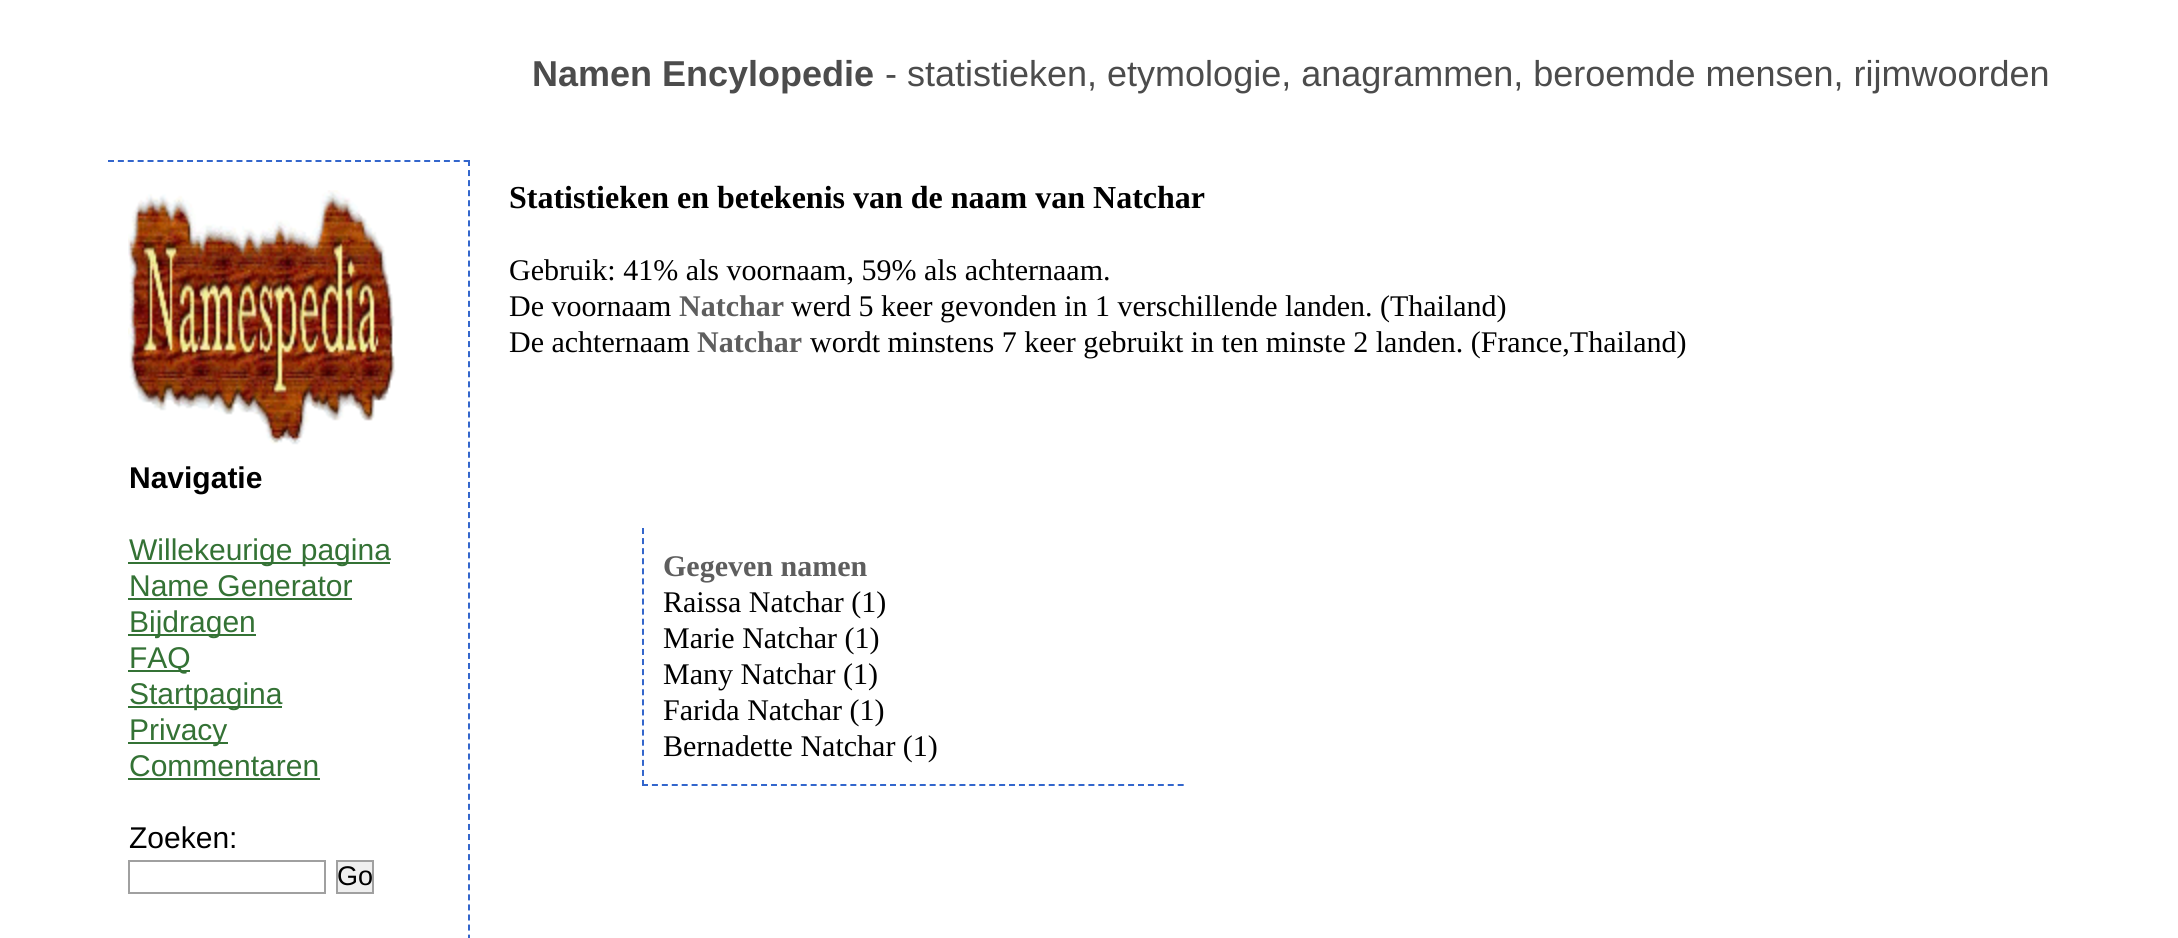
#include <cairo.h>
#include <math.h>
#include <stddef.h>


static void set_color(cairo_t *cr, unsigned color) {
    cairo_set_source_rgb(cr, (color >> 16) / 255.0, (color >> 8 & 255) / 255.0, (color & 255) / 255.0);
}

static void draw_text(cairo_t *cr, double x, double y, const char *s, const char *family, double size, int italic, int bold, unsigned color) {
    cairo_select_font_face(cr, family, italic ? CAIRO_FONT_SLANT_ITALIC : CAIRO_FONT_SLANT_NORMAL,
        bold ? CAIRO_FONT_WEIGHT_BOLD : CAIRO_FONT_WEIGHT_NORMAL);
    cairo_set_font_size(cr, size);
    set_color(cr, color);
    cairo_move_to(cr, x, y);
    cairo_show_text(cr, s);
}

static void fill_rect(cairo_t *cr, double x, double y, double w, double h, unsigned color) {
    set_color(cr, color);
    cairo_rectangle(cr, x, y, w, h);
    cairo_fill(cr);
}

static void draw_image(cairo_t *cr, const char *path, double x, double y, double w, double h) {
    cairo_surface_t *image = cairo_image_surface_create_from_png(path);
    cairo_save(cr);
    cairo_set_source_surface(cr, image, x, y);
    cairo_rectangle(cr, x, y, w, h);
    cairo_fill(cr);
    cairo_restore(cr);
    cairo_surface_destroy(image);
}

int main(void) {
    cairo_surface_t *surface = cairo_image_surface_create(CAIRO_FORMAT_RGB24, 2178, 938);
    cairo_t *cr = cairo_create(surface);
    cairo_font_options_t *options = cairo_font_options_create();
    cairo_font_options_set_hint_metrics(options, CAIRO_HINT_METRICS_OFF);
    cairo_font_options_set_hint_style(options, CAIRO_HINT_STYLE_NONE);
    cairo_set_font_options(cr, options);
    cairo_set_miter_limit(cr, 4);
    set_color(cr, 0xFFFFFF);
    cairo_paint(cr);
    draw_text(cr, 532, 86, "Namen Encylopedie", "Liberation Sans", 36, 0, 1, 0x4C4C4C);
    draw_text(cr, 885, 86, "- statistieken, etymologie, anagrammen, beroemde mensen, rijmwoorden", "Liberation Sans", 36, 0, 0, 0x4C4C4C);
    cairo_new_path(cr);
    cairo_move_to(cr, 108, 161);
    cairo_line_to(cr, 470, 161);
    set_color(cr, 0x3366CC);
    cairo_set_dash(cr, (double[]){6, 3.88}, 2, 0);
    cairo_stroke(cr);
    cairo_new_path(cr);
    cairo_move_to(cr, 469, 160);
    cairo_line_to(cr, 469, 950);
    cairo_set_dash(cr, (double[]){6, 4.06}, 2, 0);
    cairo_stroke(cr);
    draw_image(cr, "assets/img1.png", 128, 190, 268, 255);
    draw_text(cr, 129, 488, "Navigatie", "Liberation Sans", 30, 0, 1, 0x000000);
    fill_rect(cr, 128, 562, 262, 2, 0x347235);
    draw_text(cr, 129, 560, "Willekeurige pagina", "Liberation Sans", 30, 0, 0, 0x347235);
    draw_text(cr, 129, 596, "Name Generator", "Liberation Sans", 30, 0, 0, 0x347235);
    fill_rect(cr, 128, 598, 224, 2, 0x347235);
    fill_rect(cr, 128, 634, 128, 2, 0x347235);
    draw_text(cr, 129, 632, "Bijdragen", "Liberation Sans", 30, 0, 0, 0x347235);
    fill_rect(cr, 128, 670, 62, 2, 0x347235);
    draw_text(cr, 129, 668, "FAQ", "Liberation Sans", 30, 0, 0, 0x347235);
    fill_rect(cr, 128, 706, 154, 2, 0x347235);
    draw_text(cr, 129, 704, "Startpagina", "Liberation Sans", 30, 0, 0, 0x347235);
    fill_rect(cr, 128, 742, 100, 2, 0x347235);
    draw_text(cr, 129, 740, "Privacy", "Liberation Sans", 30, 0, 0, 0x347235);
    draw_text(cr, 129, 776, "Commentaren", "Liberation Sans", 30, 0, 0, 0x347235);
    fill_rect(cr, 128, 778, 192, 2, 0x347235);
    draw_text(cr, 129, 848, "Zoeken:", "Liberation Sans", 30, 0, 0, 0x000000);
    cairo_rectangle(cr, 129, 861, 196, 32);
    set_color(cr, 0xA0A0A0);
    cairo_set_dash(cr, NULL, 0, 0);
    cairo_stroke(cr);
    set_color(cr, 0xEFEFEF);
    cairo_rectangle(cr, 337, 861, 36, 32);
    cairo_fill_preserve(cr);
    set_color(cr, 0xA0A0A0);
    cairo_stroke(cr);
    draw_text(cr, 337, 885, "Go", "Liberation Sans", 27, 0, 0, 0x000000);
    draw_text(cr, 509, 208, "Statistieken en betekenis van de naam van Natchar", "Liberation Serif", 32, 0, 1, 0x000000);
    draw_text(cr, 509, 280, "Gebruik: 41% als voornaam, 59% als achternaam.", "Liberation Serif", 30, 0, 0, 0x000000);
    draw_text(cr, 509, 316, "De voornaam", "Liberation Serif", 30, 0, 0, 0x000000);
    draw_text(cr, 679, 316, "Natchar", "Liberation Serif", 30, 0, 1, 0x5E5E5E);
    draw_text(cr, 791, 316, "werd 5 keer gevonden in 1 verschillende landen. (Thailand)", "Liberation Serif", 30, 0, 0, 0x000000);
    draw_text(cr, 509, 352, "De achternaam", "Liberation Serif", 30, 0, 0, 0x000000);
    draw_text(cr, 697, 352, "Natchar", "Liberation Serif", 30, 0, 1, 0x5E5E5E);
    draw_text(cr, 810, 352, "wordt minstens 7 keer gebruikt in ten minste 2 landen. (France,Thailand)", "Liberation Serif", 30, 0, 0, 0x000000);
    cairo_new_path(cr);
    cairo_move_to(cr, 642, 785);
    cairo_line_to(cr, 1184, 785);
    set_color(cr, 0x3366CC);
    cairo_set_dash(cr, (double[]){6, 3.92}, 2, 0);
    cairo_stroke(cr);
    cairo_new_path(cr);
    cairo_move_to(cr, 643, 528);
    cairo_line_to(cr, 643, 786);
    cairo_set_dash(cr, (double[]){6, 4.08}, 2, 0);
    cairo_stroke(cr);
    draw_text(cr, 663, 576, "Gegeven namen", "Liberation Serif", 30, 0, 1, 0x5E5E5E);
    draw_text(cr, 663, 612, "Raissa Natchar (1)", "Liberation Serif", 30, 0, 0, 0x000000);
    draw_text(cr, 663, 648, "Marie Natchar (1)", "Liberation Serif", 30, 0, 0, 0x000000);
    draw_text(cr, 663, 684, "Many Natchar (1)", "Liberation Serif", 30, 0, 0, 0x000000);
    draw_text(cr, 663, 720, "Farida Natchar (1)", "Liberation Serif", 30, 0, 0, 0x000000);
    draw_text(cr, 663, 756, "Bernadette Natchar (1)", "Liberation Serif", 30, 0, 0, 0x000000);
    cairo_surface_write_to_png(surface, "output.png");
    cairo_font_options_destroy(options);
    cairo_destroy(cr);
    cairo_surface_destroy(surface);
    return 0;
}
